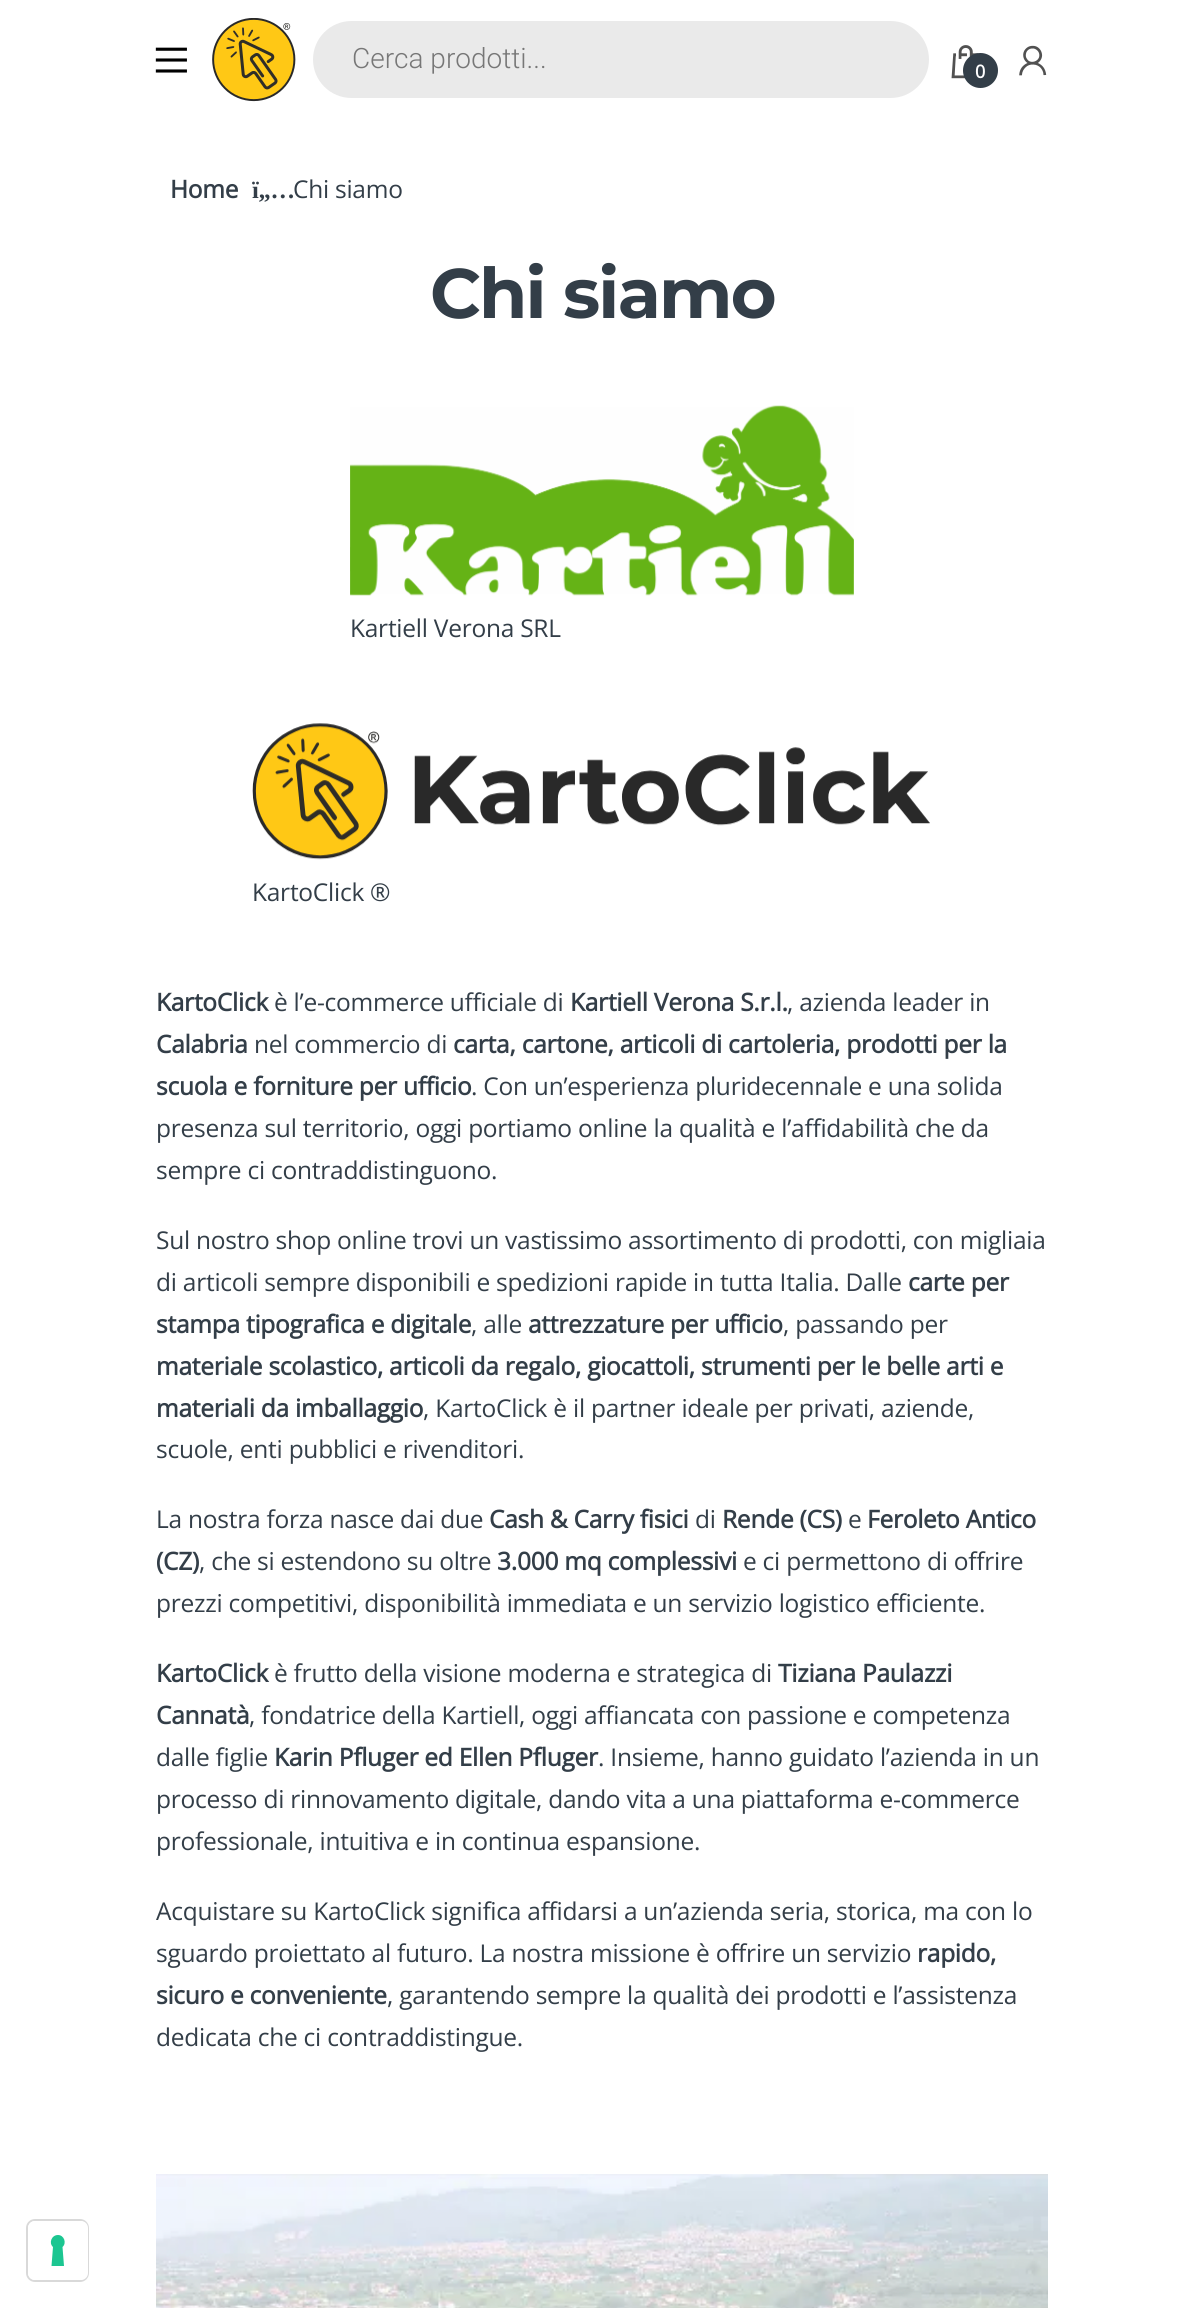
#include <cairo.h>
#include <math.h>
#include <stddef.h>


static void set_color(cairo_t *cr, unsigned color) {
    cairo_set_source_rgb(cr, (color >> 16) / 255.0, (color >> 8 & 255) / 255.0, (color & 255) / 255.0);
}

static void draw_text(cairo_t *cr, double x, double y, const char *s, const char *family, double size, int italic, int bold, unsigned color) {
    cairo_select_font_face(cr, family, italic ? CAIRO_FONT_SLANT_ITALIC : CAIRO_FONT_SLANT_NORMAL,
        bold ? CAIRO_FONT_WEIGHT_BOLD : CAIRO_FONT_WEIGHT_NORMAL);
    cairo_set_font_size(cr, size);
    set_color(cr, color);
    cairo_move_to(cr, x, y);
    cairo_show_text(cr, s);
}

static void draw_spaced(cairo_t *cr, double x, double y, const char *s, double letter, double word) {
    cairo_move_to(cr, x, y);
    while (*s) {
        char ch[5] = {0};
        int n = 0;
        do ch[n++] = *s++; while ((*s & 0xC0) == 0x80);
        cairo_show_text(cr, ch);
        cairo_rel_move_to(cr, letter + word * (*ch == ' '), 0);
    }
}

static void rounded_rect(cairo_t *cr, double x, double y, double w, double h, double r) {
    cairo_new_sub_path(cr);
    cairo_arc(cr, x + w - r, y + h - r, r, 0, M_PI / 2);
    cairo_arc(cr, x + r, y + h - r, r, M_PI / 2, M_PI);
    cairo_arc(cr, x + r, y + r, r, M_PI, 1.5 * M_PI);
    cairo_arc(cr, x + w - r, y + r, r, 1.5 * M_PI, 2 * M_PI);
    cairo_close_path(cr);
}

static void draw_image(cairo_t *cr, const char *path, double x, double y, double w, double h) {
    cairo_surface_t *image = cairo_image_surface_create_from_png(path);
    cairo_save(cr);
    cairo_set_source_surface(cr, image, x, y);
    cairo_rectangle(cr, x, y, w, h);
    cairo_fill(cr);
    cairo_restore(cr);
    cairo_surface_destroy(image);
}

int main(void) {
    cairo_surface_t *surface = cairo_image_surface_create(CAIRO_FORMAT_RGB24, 1204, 2308);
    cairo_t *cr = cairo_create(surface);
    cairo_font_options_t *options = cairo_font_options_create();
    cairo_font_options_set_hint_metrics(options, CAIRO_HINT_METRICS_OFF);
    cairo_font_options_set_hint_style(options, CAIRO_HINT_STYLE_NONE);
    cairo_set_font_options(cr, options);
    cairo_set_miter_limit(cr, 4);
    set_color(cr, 0xFFFFFF);
    cairo_paint(cr);
    draw_image(cr, "assets/img1.png", 155, 47, 32, 26);
    draw_image(cr, "assets/img2.png", 212, 18, 84, 84);
    set_color(cr, 0xEAEAEA);
    rounded_rect(cr, 313, 21, 616, 77, 38.5);
    cairo_fill(cr);
    draw_text(cr, 352, 68, "Cerca prodotti...", "Roboto Light", 28, 0, 0, 0x777777);
    draw_image(cr, "assets/img3.png", 951, 45, 28, 34);
    set_color(cr, 0x333E48);
    cairo_arc(cr, 980.5, 70.5, 17.5, 0, 2 * M_PI);
    cairo_fill(cr);
    cairo_select_font_face(cr, "Open Sans", CAIRO_FONT_SLANT_NORMAL, CAIRO_FONT_WEIGHT_BOLD);
    cairo_set_font_size(cr, 18);
    set_color(cr, 0xFFFFFF);
    draw_spaced(cr, 975, 78, "0", -0.25, 0);
    draw_image(cr, "assets/img4.png", 1019, 45, 28, 31);
    cairo_set_font_size(cr, 24.5);
    set_color(cr, 0x333E48);
    draw_spaced(cr, 170, 198, "Home", -0.25, 0);
    cairo_select_font_face(cr, "Liberation Serif", CAIRO_FONT_SLANT_NORMAL, CAIRO_FONT_WEIGHT_BOLD);
    draw_spaced(cr, 252, 198, "ï„…", -0.25, 0);
    cairo_select_font_face(cr, "Open Sans", CAIRO_FONT_SLANT_NORMAL, CAIRO_FONT_WEIGHT_NORMAL);
    draw_spaced(cr, 293, 198, "Chi siamo", -0.25, 0);
    cairo_select_font_face(cr, "Montserrat Thin", CAIRO_FONT_SLANT_NORMAL, CAIRO_FONT_WEIGHT_NORMAL);
    cairo_set_font_size(cr, 70);
    draw_spaced(cr, 430, 318, "Chi siamo", -1.75, 0);
    draw_image(cr, "assets/img5.png", 350, 405, 504, 191);
    cairo_select_font_face(cr, "Open Sans", CAIRO_FONT_SLANT_NORMAL, CAIRO_FONT_WEIGHT_NORMAL);
    cairo_set_font_size(cr, 24.5);
    draw_spaced(cr, 350, 637, "Kartiell Verona SRL", -0.25, 0);
    draw_image(cr, "assets/img6.png", 252, 723, 678, 137);
    draw_spaced(cr, 252, 901, "KartoClick ®", -0.25, 0);
    cairo_select_font_face(cr, "Open Sans", CAIRO_FONT_SLANT_NORMAL, CAIRO_FONT_WEIGHT_BOLD);
    draw_spaced(cr, 156, 1011, "KartoClick", -0.25, 0);
    cairo_select_font_face(cr, "Open Sans", CAIRO_FONT_SLANT_NORMAL, CAIRO_FONT_WEIGHT_NORMAL);
    draw_spaced(cr, 274, 1011, "è l’e-commerce ufficiale di", -0.25, 0);
    cairo_select_font_face(cr, "Open Sans", CAIRO_FONT_SLANT_NORMAL, CAIRO_FONT_WEIGHT_BOLD);
    draw_spaced(cr, 570, 1011, "Kartiell Verona S.r.l.", -0.25, 0);
    cairo_select_font_face(cr, "Open Sans", CAIRO_FONT_SLANT_NORMAL, CAIRO_FONT_WEIGHT_NORMAL);
    draw_spaced(cr, 787, 1011, ", azienda leader in", -0.25, 0);
    cairo_select_font_face(cr, "Open Sans", CAIRO_FONT_SLANT_NORMAL, CAIRO_FONT_WEIGHT_BOLD);
    draw_spaced(cr, 156, 1053, "Calabria", -0.25, 0);
    cairo_select_font_face(cr, "Open Sans", CAIRO_FONT_SLANT_NORMAL, CAIRO_FONT_WEIGHT_NORMAL);
    draw_spaced(cr, 254, 1053, "nel commercio di", -0.25, 0);
    cairo_select_font_face(cr, "Open Sans", CAIRO_FONT_SLANT_NORMAL, CAIRO_FONT_WEIGHT_BOLD);
    draw_spaced(cr, 453, 1053, "carta, cartone, articoli di cartoleria, prodotti per la", -0.25, 0);
    draw_spaced(cr, 156, 1095, "scuola e forniture per ufficio", -0.25, 0);
    cairo_select_font_face(cr, "Open Sans", CAIRO_FONT_SLANT_NORMAL, CAIRO_FONT_WEIGHT_NORMAL);
    draw_spaced(cr, 471, 1095, ". Con un’esperienza pluridecennale e una solida", -0.25, 0);
    draw_spaced(cr, 156, 1137, "presenza sul territorio, oggi portiamo online la qualità e l’affidabilità che da", -0.25, 0);
    draw_spaced(cr, 156, 1179, "sempre ci contraddistinguono.", -0.25, 0);
    draw_spaced(cr, 156, 1249, "Sul nostro shop online trovi un vastissimo assortimento di prodotti, con migliaia", -0.25, 0);
    draw_spaced(cr, 156, 1291, "di articoli sempre disponibili e spedizioni rapide in tutta Italia. Dalle", -0.25, 0);
    cairo_select_font_face(cr, "Open Sans", CAIRO_FONT_SLANT_NORMAL, CAIRO_FONT_WEIGHT_BOLD);
    draw_spaced(cr, 908, 1291, "carte per", -0.25, 0);
    draw_spaced(cr, 156, 1333, "stampa tipografica e digitale", -0.25, 0);
    cairo_select_font_face(cr, "Open Sans", CAIRO_FONT_SLANT_NORMAL, CAIRO_FONT_WEIGHT_NORMAL);
    draw_spaced(cr, 471, 1333, ", alle", -0.25, 0);
    cairo_select_font_face(cr, "Open Sans", CAIRO_FONT_SLANT_NORMAL, CAIRO_FONT_WEIGHT_BOLD);
    draw_spaced(cr, 528, 1333, "attrezzature per ufficio", -0.25, 0);
    cairo_select_font_face(cr, "Open Sans", CAIRO_FONT_SLANT_NORMAL, CAIRO_FONT_WEIGHT_NORMAL);
    draw_spaced(cr, 783, 1333, ", passando per", -0.25, 0);
    cairo_select_font_face(cr, "Open Sans", CAIRO_FONT_SLANT_NORMAL, CAIRO_FONT_WEIGHT_BOLD);
    draw_spaced(cr, 156, 1375, "materiale scolastico, articoli da regalo, giocattoli, strumenti per le belle arti e", -0.25, 0);
    draw_spaced(cr, 156, 1417, "materiali da imballaggio", -0.25, 0);
    cairo_select_font_face(cr, "Open Sans", CAIRO_FONT_SLANT_NORMAL, CAIRO_FONT_WEIGHT_NORMAL);
    draw_spaced(cr, 423, 1417, ", KartoClick è il partner ideale per privati, aziende,", -0.25, 0);
    draw_spaced(cr, 156, 1458, "scuole, enti pubblici e rivenditori.", -0.25, 0);
    draw_spaced(cr, 156, 1528, "La nostra forza nasce dai due", -0.25, 0);
    cairo_select_font_face(cr, "Open Sans", CAIRO_FONT_SLANT_NORMAL, CAIRO_FONT_WEIGHT_BOLD);
    draw_spaced(cr, 489, 1528, "Cash & Carry fisici", -0.25, 0);
    cairo_select_font_face(cr, "Open Sans", CAIRO_FONT_SLANT_NORMAL, CAIRO_FONT_WEIGHT_NORMAL);
    draw_spaced(cr, 695, 1528, "di", -0.25, 0);
    cairo_select_font_face(cr, "Open Sans", CAIRO_FONT_SLANT_NORMAL, CAIRO_FONT_WEIGHT_BOLD);
    draw_spaced(cr, 722, 1528, "Rende (CS)", -0.25, 0);
    cairo_select_font_face(cr, "Open Sans", CAIRO_FONT_SLANT_NORMAL, CAIRO_FONT_WEIGHT_NORMAL);
    draw_spaced(cr, 848, 1528, "e", -0.25, 0);
    cairo_select_font_face(cr, "Open Sans", CAIRO_FONT_SLANT_NORMAL, CAIRO_FONT_WEIGHT_BOLD);
    draw_spaced(cr, 867, 1528, "Feroleto Antico", -0.25, 0);
    draw_spaced(cr, 156, 1570, "(CZ)", -0.25, 0);
    cairo_select_font_face(cr, "Open Sans", CAIRO_FONT_SLANT_NORMAL, CAIRO_FONT_WEIGHT_NORMAL);
    draw_spaced(cr, 199, 1570, ", che si estendono su oltre", -0.25, 0);
    cairo_select_font_face(cr, "Open Sans", CAIRO_FONT_SLANT_NORMAL, CAIRO_FONT_WEIGHT_BOLD);
    draw_spaced(cr, 497, 1570, "3.000 mq complessivi", -0.25, 0);
    cairo_select_font_face(cr, "Open Sans", CAIRO_FONT_SLANT_NORMAL, CAIRO_FONT_WEIGHT_NORMAL);
    draw_spaced(cr, 743, 1570, "e ci permettono di offrire", -0.25, 0);
    draw_spaced(cr, 156, 1612, "prezzi competitivi, disponibilità immediata e un servizio logistico efficiente.", -0.25, 0);
    cairo_select_font_face(cr, "Open Sans", CAIRO_FONT_SLANT_NORMAL, CAIRO_FONT_WEIGHT_BOLD);
    draw_spaced(cr, 156, 1682, "KartoClick", -0.25, 0);
    cairo_select_font_face(cr, "Open Sans", CAIRO_FONT_SLANT_NORMAL, CAIRO_FONT_WEIGHT_NORMAL);
    draw_spaced(cr, 274, 1682, "è frutto della visione moderna e strategica di", -0.25, 0);
    cairo_select_font_face(cr, "Open Sans", CAIRO_FONT_SLANT_NORMAL, CAIRO_FONT_WEIGHT_BOLD);
    draw_spaced(cr, 778, 1682, "Tiziana Paulazzi", -0.25, 0);
    draw_spaced(cr, 156, 1724, "Cannatà", -0.25, 0);
    cairo_select_font_face(cr, "Open Sans", CAIRO_FONT_SLANT_NORMAL, CAIRO_FONT_WEIGHT_NORMAL);
    draw_spaced(cr, 249, 1724, ", fondatrice della Kartiell, oggi affiancata con passione e competenza", -0.25, 0);
    draw_spaced(cr, 156, 1766, "dalle figlie", -0.25, 0);
    cairo_select_font_face(cr, "Open Sans", CAIRO_FONT_SLANT_NORMAL, CAIRO_FONT_WEIGHT_BOLD);
    draw_spaced(cr, 274, 1766, "Karin Pfluger ed Ellen Pfluger", -0.25, 0);
    cairo_select_font_face(cr, "Open Sans", CAIRO_FONT_SLANT_NORMAL, CAIRO_FONT_WEIGHT_NORMAL);
    draw_spaced(cr, 598, 1766, ". Insieme, hanno guidato l’azienda in un", -0.25, 0);
    draw_spaced(cr, 156, 1808, "processo di rinnovamento digitale, dando vita a una piattaforma e-commerce", -0.25, 0);
    draw_spaced(cr, 156, 1850, "professionale, intuitiva e in continua espansione.", -0.25, 0);
    draw_spaced(cr, 156, 1920, "Acquistare su KartoClick significa affidarsi a un’azienda seria, storica, ma con lo", -0.25, 0);
    draw_spaced(cr, 156, 1962, "sguardo proiettato al futuro. La nostra missione è offrire un servizio", -0.25, 0);
    cairo_select_font_face(cr, "Open Sans", CAIRO_FONT_SLANT_NORMAL, CAIRO_FONT_WEIGHT_BOLD);
    draw_spaced(cr, 917, 1962, "rapido,", -0.25, 0);
    draw_spaced(cr, 156, 2004, "sicuro e conveniente", -0.25, 0);
    cairo_select_font_face(cr, "Open Sans", CAIRO_FONT_SLANT_NORMAL, CAIRO_FONT_WEIGHT_NORMAL);
    draw_spaced(cr, 387, 2004, ", garantendo sempre la qualità dei prodotti e l’assistenza", -0.25, 0);
    draw_spaced(cr, 156, 2046, "dedicata che ci contraddistingue.", -0.25, 0);
    draw_image(cr, "assets/img7.png", 156, 2174, 892, 134);
    rounded_rect(cr, 27, 2220, 61, 61, 8);
    set_color(cr, 0xD9D9D9);
    cairo_stroke(cr);
    set_color(cr, 0xFFFFFF);
    rounded_rect(cr, 28, 2221, 60, 59, 7);
    cairo_fill(cr);
    set_color(cr, 0x1CC691);
    cairo_set_fill_rule(cr, CAIRO_FILL_RULE_EVEN_ODD);
    cairo_new_path(cr);
    cairo_move_to(cr, 58, 2235);
    cairo_curve_to(cr, 64, 2235, 67, 2243, 62.5, 2247);
    cairo_line_to(cr, 64, 2266);
    cairo_line_to(cr, 51.5, 2266);
    cairo_line_to(cr, 53, 2247);
    cairo_curve_to(cr, 48.5, 2243, 51.5, 2235, 58, 2235);
    cairo_close_path(cr);
    cairo_fill(cr);
    cairo_surface_write_to_png(surface, "output.png");
    cairo_font_options_destroy(options);
    cairo_destroy(cr);
    cairo_surface_destroy(surface);
    return 0;
}
